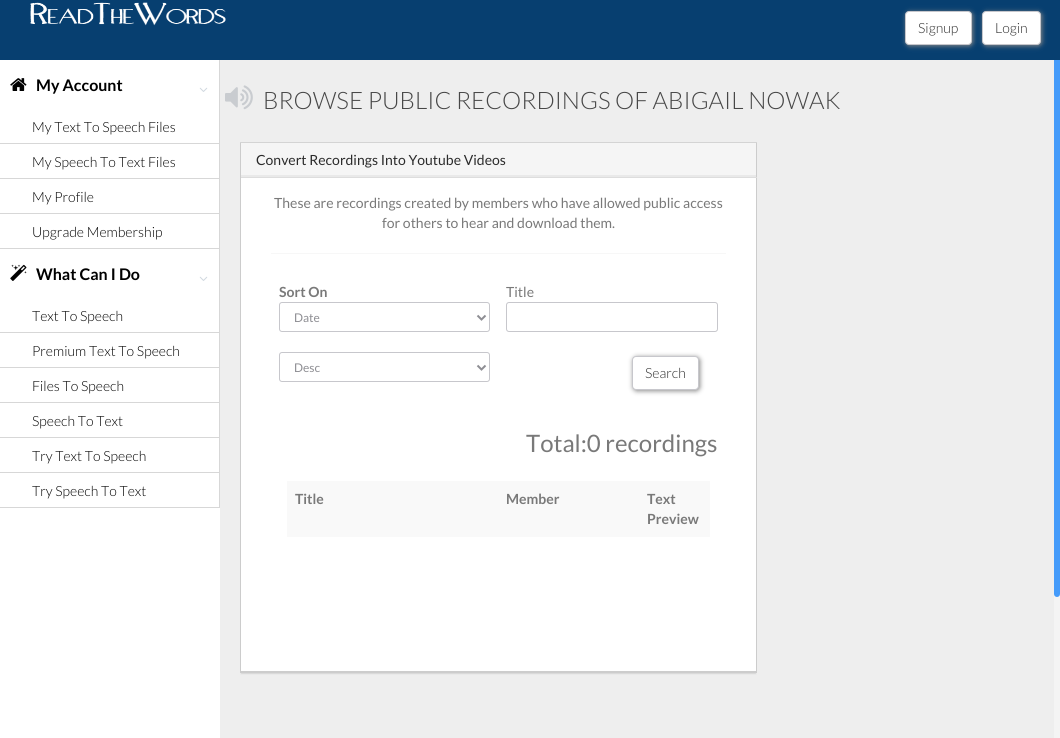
#include <cairo.h>
#include <math.h>
#include <stddef.h>


static void set_color(cairo_t *cr, unsigned color) {
    cairo_set_source_rgb(cr, (color >> 16) / 255.0, (color >> 8 & 255) / 255.0, (color & 255) / 255.0);
}

static void draw_text(cairo_t *cr, double x, double y, const char *s, const char *family, double size, int italic, int bold, unsigned color) {
    cairo_select_font_face(cr, family, italic ? CAIRO_FONT_SLANT_ITALIC : CAIRO_FONT_SLANT_NORMAL,
        bold ? CAIRO_FONT_WEIGHT_BOLD : CAIRO_FONT_WEIGHT_NORMAL);
    cairo_set_font_size(cr, size);
    set_color(cr, color);
    cairo_move_to(cr, x, y);
    cairo_show_text(cr, s);
}

static void fill_rect(cairo_t *cr, double x, double y, double w, double h, unsigned color) {
    set_color(cr, color);
    cairo_rectangle(cr, x, y, w, h);
    cairo_fill(cr);
}

static void rounded_rect(cairo_t *cr, double x, double y, double w, double h, double r) {
    cairo_new_sub_path(cr);
    cairo_arc(cr, x + w - r, y + h - r, r, 0, M_PI / 2);
    cairo_arc(cr, x + r, y + h - r, r, M_PI / 2, M_PI);
    cairo_arc(cr, x + r, y + r, r, M_PI, 1.5 * M_PI);
    cairo_arc(cr, x + w - r, y + r, r, 1.5 * M_PI, 2 * M_PI);
    cairo_close_path(cr);
}

static void draw_shadow(cairo_t *cr, double x, double y, double w, double h, double r, double blur, double alpha) {
    cairo_push_group_with_content(cr, CAIRO_CONTENT_ALPHA);
    cairo_set_operator(cr, CAIRO_OPERATOR_SOURCE);
    for (int i = 15; i >= -15 && fmin(w, h) + blur * i / 3 > 0; i -= 2) {
        double e = blur * i / 6;
        cairo_set_source_rgba(cr, 0, 0, 0, alpha * erfc((i - 1) / 8.5) / 2);
        rounded_rect(cr, x - e, y - e, w + 2 * e, h + 2 * e, fmax(0, fmin(r + e + blur * .6, fmin(w, h) / 2 + e)));
        cairo_fill(cr);
    }
    cairo_pattern_t *soft = cairo_pop_group(cr);
    cairo_mask(cr, soft);
    cairo_pattern_destroy(soft);
}

static void draw_image(cairo_t *cr, const char *path, double x, double y, double w, double h) {
    cairo_surface_t *image = cairo_image_surface_create_from_png(path);
    cairo_save(cr);
    cairo_set_source_surface(cr, image, x, y);
    cairo_rectangle(cr, x, y, w, h);
    cairo_fill(cr);
    cairo_restore(cr);
    cairo_surface_destroy(image);
}

int main(void) {
    cairo_surface_t *surface = cairo_image_surface_create(CAIRO_FORMAT_RGB24, 1060, 738);
    cairo_t *cr = cairo_create(surface);
    cairo_font_options_t *options = cairo_font_options_create();
    cairo_font_options_set_hint_metrics(options, CAIRO_HINT_METRICS_OFF);
    cairo_font_options_set_hint_style(options, CAIRO_HINT_STYLE_NONE);
    cairo_set_font_options(cr, options);
    cairo_set_miter_limit(cr, 4);
    set_color(cr, 0xEEEEEE);
    cairo_paint(cr);
    fill_rect(cr, 1054, 594, 6, 144, 0xF4F4F4);
    set_color(cr, 0x449BFA);
    rounded_rect(cr, 1054, 0, 6, 597, 3);
    cairo_fill(cr);
    fill_rect(cr, 0, 0, 1060, 60, 0x073F70);
    draw_image(cr, "assets/img1.png", 30, 2, 196, 24);
    set_color(cr, 0x888888);
    draw_shadow(cr, 906, 12, 67, 34, 4, 2.5, 1);
    set_color(cr, 0xFFFFFF);
    rounded_rect(cr, 905.5, 11.5, 66, 33, 3.5);
    cairo_fill_preserve(cr);
    set_color(cr, 0xC7C7CC);
    cairo_set_line_width(cr, 1);
    cairo_stroke(cr);
    draw_text(cr, 918, 33, "Signup", "Lato Light", 14, 0, 0, 0x2B2B2B);
    set_color(cr, 0x888888);
    draw_shadow(cr, 983, 12, 59, 34, 4, 2.5, 1);
    set_color(cr, 0xFFFFFF);
    rounded_rect(cr, 982.5, 11.5, 58, 33, 3.5);
    cairo_fill_preserve(cr);
    set_color(cr, 0xC7C7CC);
    cairo_stroke(cr);
    draw_text(cr, 995, 33, "Login", "Lato Light", 14, 0, 0, 0x2B2B2B);
    fill_rect(cr, 0, 60, 220, 678, 0xFFFFFF);
    fill_rect(cr, 219, 60, 1, 448, 0xD7D7D7);
    draw_image(cr, "assets/img2.png", 10, 78, 17, 13);
    draw_text(cr, 36, 91, "My Account", "Lato", 16, 0, 1, 0x000000);
    draw_image(cr, "assets/img3.png", 199, 87, 9, 5);
    fill_rect(cr, 0, 143, 220, 1, 0xD7D7D7);
    draw_text(cr, 32, 132, "My Text To Speech Files", "Lato Light", 14, 0, 0, 0x000000);
    fill_rect(cr, 0, 178, 220, 1, 0xD7D7D7);
    draw_text(cr, 32, 167, "My Speech To Text Files", "Lato Light", 14, 0, 0, 0x000000);
    fill_rect(cr, 0, 213, 220, 1, 0xD7D7D7);
    draw_text(cr, 32, 202, "My Profile", "Lato Light", 14, 0, 0, 0x000000);
    fill_rect(cr, 0, 248, 220, 1, 0xD7D7D7);
    draw_text(cr, 32, 237, "Upgrade Membership", "Lato Light", 14, 0, 0, 0x000000);
    draw_image(cr, "assets/img4.png", 10, 264, 17, 17);
    draw_text(cr, 36, 280, "What Can I Do", "Lato", 16, 0, 1, 0x000000);
    draw_image(cr, "assets/img3.png", 199, 276, 9, 5);
    fill_rect(cr, 0, 332, 220, 1, 0xD7D7D7);
    draw_text(cr, 32, 321, "Text To Speech", "Lato Light", 14, 0, 0, 0x000000);
    fill_rect(cr, 0, 367, 220, 1, 0xD7D7D7);
    draw_text(cr, 32, 356, "Premium Text To Speech", "Lato Light", 14, 0, 0, 0x000000);
    fill_rect(cr, 0, 402, 220, 1, 0xD7D7D7);
    draw_text(cr, 32, 391, "Files To Speech", "Lato Light", 14, 0, 0, 0x000000);
    fill_rect(cr, 0, 437, 220, 1, 0xD7D7D7);
    draw_text(cr, 32, 426, "Speech To Text", "Lato Light", 14, 0, 0, 0x000000);
    fill_rect(cr, 0, 472, 220, 1, 0xD7D7D7);
    draw_text(cr, 32, 461, "Try Text To Speech", "Lato Light", 14, 0, 0, 0x000000);
    fill_rect(cr, 0, 507, 220, 1, 0xD7D7D7);
    draw_text(cr, 32, 496, "Try Speech To Text", "Lato Light", 14, 0, 0, 0x000000);
    draw_image(cr, "assets/img5.png", 225, 85, 28, 25);
    draw_text(cr, 263, 109, "BROWSE PUBLIC RECORDINGS OF ABIGAIL NOWAK", "Lato Light", 24, 0, 0, 0x474747);
    set_color(cr, 0x000000);
    draw_shadow(cr, 241, 145, 515, 529, 0, 0.5, 0.1);
    fill_rect(cr, 241, 178, 515, 493, 0xFFFFFF);
    fill_rect(cr, 240, 142, 517, 1, 0xD4D4D4);
    fill_rect(cr, 241, 143, 515, 32, 0xF5F5F5);
    fill_rect(cr, 241, 175, 515, 2, 0xE9E9E9);
    fill_rect(cr, 756, 143, 1, 530, 0xCCCCCC);
    fill_rect(cr, 240, 177, 517, 1, 0xDDDDDD);
    fill_rect(cr, 240, 143, 1, 35, 0xCCCCCC);
    draw_text(cr, 256, 165, "Convert Recordings Into Youtube Videos", "Lato", 14, 0, 0, 0x2B2B2B);
    fill_rect(cr, 240, 671, 517, 2, 0xCCCCCC);
    fill_rect(cr, 240, 178, 1, 495, 0xCCCCCC);
    draw_text(cr, 274, 208, "These are recordings created by members who have allowed public access", "Lato", 14, 0, 0, 0x797979);
    draw_text(cr, 382, 228, "for others to hear and download them.", "Lato", 14, 0, 0, 0x797979);
    fill_rect(cr, 271, 253, 455, 1, 0xF7F7F7);
    draw_text(cr, 279, 297, "Sort On", "Lato", 14, 0, 1, 0x797979);
    rounded_rect(cr, 279.5, 302.5, 210, 29, 2.5);
    set_color(cr, 0xC7C7CC);
    cairo_stroke(cr);
    cairo_new_path(cr);
    cairo_move_to(cr, 477.5, 315.5);
    cairo_line_to(cr, 481.5, 319.5);
    cairo_line_to(cr, 485.5, 315.5);
    set_color(cr, 0x8E8E93);
    cairo_set_line_width(cr, 2);
    cairo_stroke(cr);
    draw_text(cr, 294, 322, "Date", "Lato", 12, 0, 0, 0x8E8E93);
    rounded_rect(cr, 279.5, 352.5, 210, 29, 2.5);
    set_color(cr, 0xC7C7CC);
    cairo_set_line_width(cr, 1);
    cairo_stroke(cr);
    cairo_new_path(cr);
    cairo_move_to(cr, 477.5, 365.5);
    cairo_line_to(cr, 481.5, 369.5);
    cairo_line_to(cr, 485.5, 365.5);
    set_color(cr, 0x8E8E93);
    cairo_set_line_width(cr, 2);
    cairo_stroke(cr);
    draw_text(cr, 294, 372, "Desc", "Lato", 12, 0, 0, 0x8E8E93);
    draw_text(cr, 506, 297, "Title", "Lato", 14, 0, 0, 0x797979);
    rounded_rect(cr, 506.5, 302.5, 211, 29, 2.5);
    set_color(cr, 0xC7C7CC);
    cairo_set_line_width(cr, 1);
    cairo_stroke(cr);
    set_color(cr, 0x888888);
    draw_shadow(cr, 633, 357, 67, 34, 4, 2.5, 1);
    set_color(cr, 0xFFFFFF);
    rounded_rect(cr, 632.5, 356.5, 66, 33, 3.5);
    cairo_fill_preserve(cr);
    set_color(cr, 0xC7C7CC);
    cairo_stroke(cr);
    draw_text(cr, 645, 378, "Search", "Lato Light", 14, 0, 0, 0x2B2B2B);
    draw_text(cr, 526, 452, "Total:0 recordings", "Lato", 24, 0, 0, 0x797979);
    fill_rect(cr, 287, 481, 423, 56, 0xF9F9F9);
    draw_text(cr, 295, 504, "Title", "Lato", 14, 0, 1, 0x797979);
    draw_text(cr, 506, 504, "Member", "Lato", 14, 0, 1, 0x797979);
    draw_text(cr, 647, 504, "Text", "Lato", 14, 0, 1, 0x797979);
    draw_text(cr, 647, 524, "Preview", "Lato", 14, 0, 1, 0x797979);
    cairo_surface_write_to_png(surface, "output.png");
    cairo_font_options_destroy(options);
    cairo_destroy(cr);
    cairo_surface_destroy(surface);
    return 0;
}
